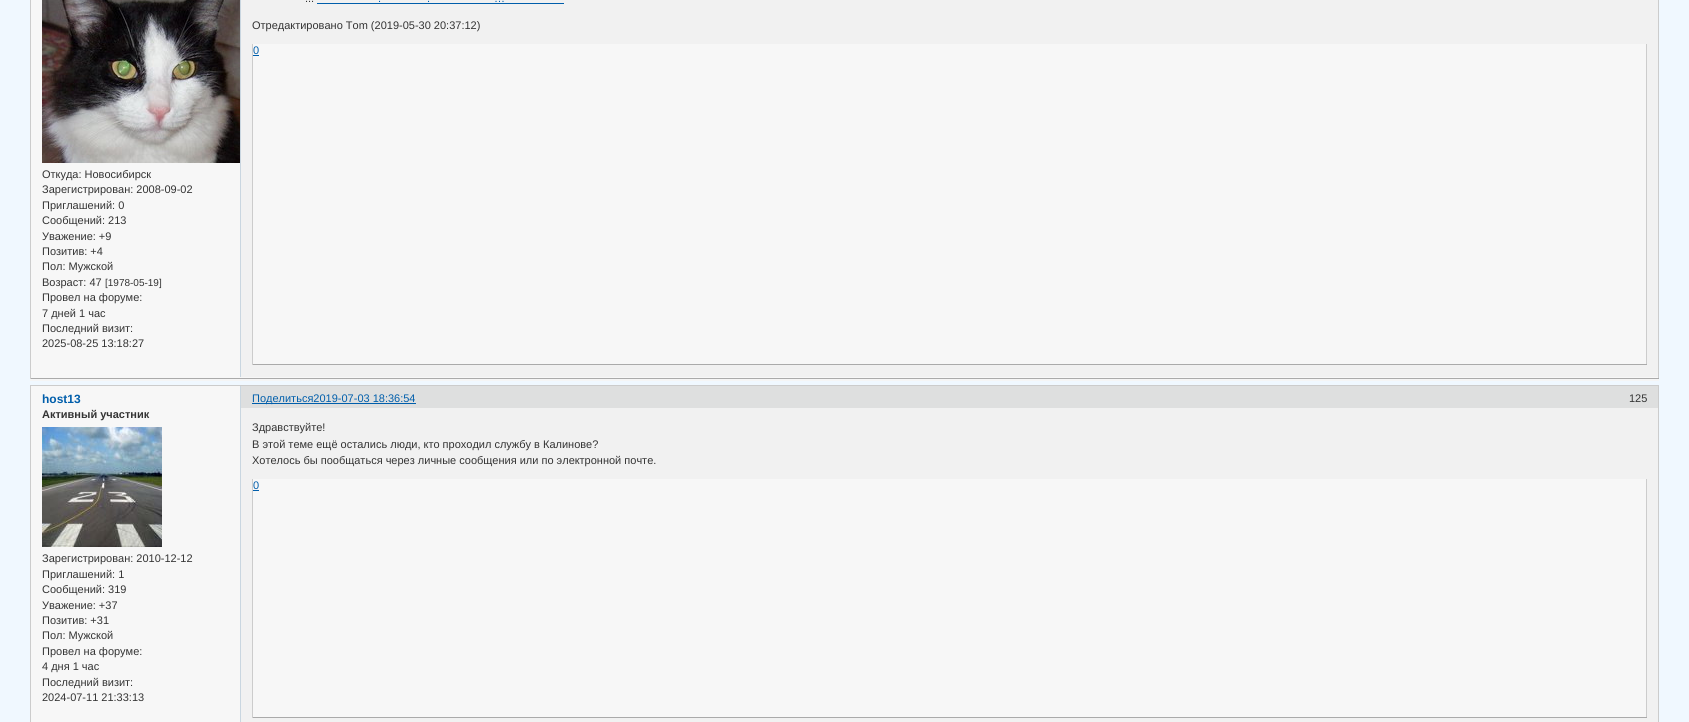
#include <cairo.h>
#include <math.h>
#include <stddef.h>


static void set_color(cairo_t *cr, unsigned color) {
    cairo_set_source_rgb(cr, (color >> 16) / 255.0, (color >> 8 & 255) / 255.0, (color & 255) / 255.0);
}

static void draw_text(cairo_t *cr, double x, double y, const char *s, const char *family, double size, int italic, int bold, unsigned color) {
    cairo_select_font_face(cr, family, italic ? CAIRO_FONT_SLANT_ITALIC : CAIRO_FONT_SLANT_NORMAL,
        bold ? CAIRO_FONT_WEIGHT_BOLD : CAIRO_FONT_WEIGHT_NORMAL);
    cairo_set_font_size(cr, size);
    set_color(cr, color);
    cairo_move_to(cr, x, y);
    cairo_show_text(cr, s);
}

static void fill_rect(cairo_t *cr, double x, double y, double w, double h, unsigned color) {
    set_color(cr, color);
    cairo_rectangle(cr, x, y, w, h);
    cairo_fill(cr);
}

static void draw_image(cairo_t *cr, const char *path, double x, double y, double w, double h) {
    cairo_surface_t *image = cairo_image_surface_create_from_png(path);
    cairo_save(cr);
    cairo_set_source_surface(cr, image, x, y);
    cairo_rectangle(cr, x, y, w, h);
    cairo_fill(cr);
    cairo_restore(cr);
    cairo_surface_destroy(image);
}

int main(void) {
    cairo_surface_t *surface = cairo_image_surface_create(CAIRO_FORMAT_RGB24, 1689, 722);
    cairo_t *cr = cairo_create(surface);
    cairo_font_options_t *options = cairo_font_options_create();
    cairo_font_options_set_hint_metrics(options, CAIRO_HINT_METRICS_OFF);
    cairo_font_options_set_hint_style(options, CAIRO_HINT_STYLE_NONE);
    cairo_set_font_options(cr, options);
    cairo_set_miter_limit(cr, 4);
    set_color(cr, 0xF0F8FF);
    cairo_paint(cr);
    fill_rect(cr, 30, 379, 1629, 2, 0xF5F5F5);
    fill_rect(cr, 31, 0, 1627, 378, 0xF7F7F7);
    fill_rect(cr, 1658, 0, 1, 379, 0xCCCCCC);
    fill_rect(cr, 30, 378, 1629, 1, 0xAAAAAA);
    fill_rect(cr, 30, 0, 1, 379, 0xCCCCCC);
    fill_rect(cr, 241, 0, 1417, 377, 0xF1F1F1);
    fill_rect(cr, 240, 0, 1, 377, 0xC9D6E0);
    draw_text(cr, 305, 2, "...", "Liberation Sans", 11, 0, 0, 0x333333);
    draw_text(cr, 378, 2, ".", "Liberation Sans", 11, 0, 0, 0x005EAB);
    fill_rect(cr, 317, 3, 247, 1, 0x005EAB);
    draw_text(cr, 427, 2, ".", "Liberation Sans", 11, 0, 0, 0x005EAB);
    draw_text(cr, 494, 2, "…", "Liberation Sans", 11, 0, 0, 0x005EAB);
    draw_text(cr, 252, 29, "Отредактировано Tom (2019-05-30 20:37:12)", "Liberation Sans", 11, 0, 0, 0x333333);
    fill_rect(cr, 253, 44, 1393, 320, 0xF7F7F7);
    fill_rect(cr, 1646, 44, 1, 321, 0xCCCCCC);
    fill_rect(cr, 252, 364, 1395, 1, 0xAAAAAA);
    fill_rect(cr, 252, 44, 1, 321, 0xCCCCCC);
    draw_text(cr, 253, 54, "0", "Liberation Sans", 11, 0, 0, 0x005EAB);
    fill_rect(cr, 253, 55, 6, 1, 0x005EAB);
    draw_image(cr, "assets/img1.png", 42, 0, 198, 163);
    draw_text(cr, 42, 178, "Откуда: Новосибирск", "Liberation Sans", 11, 0, 0, 0x333333);
    draw_text(cr, 42, 193, "Зарегистрирован: 2008-09-02", "Liberation Sans", 11, 0, 0, 0x333333);
    draw_text(cr, 42, 209, "Приглашений: 0", "Liberation Sans", 11, 0, 0, 0x333333);
    draw_text(cr, 42, 224, "Сообщений: 213", "Liberation Sans", 11, 0, 0, 0x333333);
    draw_text(cr, 42, 240, "Уважение: +9", "Liberation Sans", 11, 0, 0, 0x333333);
    draw_text(cr, 42, 255, "Позитив: +4", "Liberation Sans", 11, 0, 0, 0x333333);
    draw_text(cr, 42, 270, "Пол: Мужской", "Liberation Sans", 11, 0, 0, 0x333333);
    draw_text(cr, 42, 286, "Возраст: 47", "Liberation Sans", 11, 0, 0, 0x333333);
    draw_text(cr, 105, 286, "[1978-05-19]", "Liberation Sans", 10, 0, 0, 0x333333);
    draw_text(cr, 42, 301, "Провел на форуме:", "Liberation Sans", 11, 0, 0, 0x333333);
    draw_text(cr, 42, 317, "7 дней 1 час", "Liberation Sans", 11, 0, 0, 0x333333);
    draw_text(cr, 42, 332, "Последний визит:", "Liberation Sans", 11, 0, 0, 0x333333);
    draw_text(cr, 42, 347, "2025-08-25 13:18:27", "Liberation Sans", 11, 0, 0, 0x333333);
    fill_rect(cr, 31, 386, 209, 336, 0xF7F7F7);
    draw_text(cr, 42, 403, "host13", "Liberation Sans", 12, 0, 1, 0x005EAB);
    draw_text(cr, 42, 418, "Активный участник", "Liberation Sans", 11, 0, 1, 0x333333);
    draw_image(cr, "assets/img2.png", 42, 427, 120, 120);
    draw_text(cr, 42, 562, "Зарегистрирован: 2010-12-12", "Liberation Sans", 11, 0, 0, 0x333333);
    draw_text(cr, 42, 578, "Приглашений: 1", "Liberation Sans", 11, 0, 0, 0x333333);
    draw_text(cr, 42, 593, "Сообщений: 319", "Liberation Sans", 11, 0, 0, 0x333333);
    draw_text(cr, 42, 609, "Уважение: +37", "Liberation Sans", 11, 0, 0, 0x333333);
    draw_text(cr, 42, 624, "Позитив: +31", "Liberation Sans", 11, 0, 0, 0x333333);
    draw_text(cr, 42, 639, "Пол: Мужской", "Liberation Sans", 11, 0, 0, 0x333333);
    draw_text(cr, 42, 655, "Провел на форуме:", "Liberation Sans", 11, 0, 0, 0x333333);
    draw_text(cr, 42, 670, "4 дня 1 час", "Liberation Sans", 11, 0, 0, 0x333333);
    draw_text(cr, 42, 686, "Последний визит:", "Liberation Sans", 11, 0, 0, 0x333333);
    draw_text(cr, 42, 701, "2024-07-11 21:33:13", "Liberation Sans", 11, 0, 0, 0x333333);
    fill_rect(cr, 241, 408, 1417, 314, 0xF1F1F1);
    draw_text(cr, 252, 431, "Здравствуйте!", "Liberation Sans", 11, 0, 0, 0x333333);
    draw_text(cr, 252, 448, "В этой теме ещё остались люди, кто проходил службу в Калинове?", "Liberation Sans", 11, 0, 0, 0x333333);
    draw_text(cr, 252, 464, "Хотелось бы пообщаться через личные сообщения или по электронной почте.", "Liberation Sans", 11, 0, 0, 0x333333);
    fill_rect(cr, 253, 479, 1393, 238, 0xF7F7F7);
    fill_rect(cr, 1646, 479, 1, 239, 0xCCCCCC);
    fill_rect(cr, 252, 717, 1395, 1, 0xAAAAAA);
    fill_rect(cr, 252, 479, 1, 239, 0xCCCCCC);
    draw_text(cr, 253, 489, "0", "Liberation Sans", 11, 0, 0, 0x005EAB);
    fill_rect(cr, 253, 490, 6, 1, 0x005EAB);
    fill_rect(cr, 30, 385, 1629, 1, 0xCCCCCC);
    fill_rect(cr, 1658, 385, 1, 337, 0xCCCCCC);
    fill_rect(cr, 30, 385, 1, 337, 0xCCCCCC);
    fill_rect(cr, 241, 386, 1417, 22, 0xDEDFDF);
    fill_rect(cr, 240, 386, 1, 336, 0xC9D6E0);
    fill_rect(cr, 252, 403, 164, 1, 0x005EAB);
    draw_text(cr, 252, 402, "Поделиться2019-07-03 18:36:54", "Liberation Sans", 11, 0, 0, 0x005EAB);
    draw_text(cr, 1629, 402, "125", "Liberation Sans", 11, 0, 0, 0x333333);
    cairo_surface_write_to_png(surface, "output.png");
    cairo_font_options_destroy(options);
    cairo_destroy(cr);
    cairo_surface_destroy(surface);
    return 0;
}
